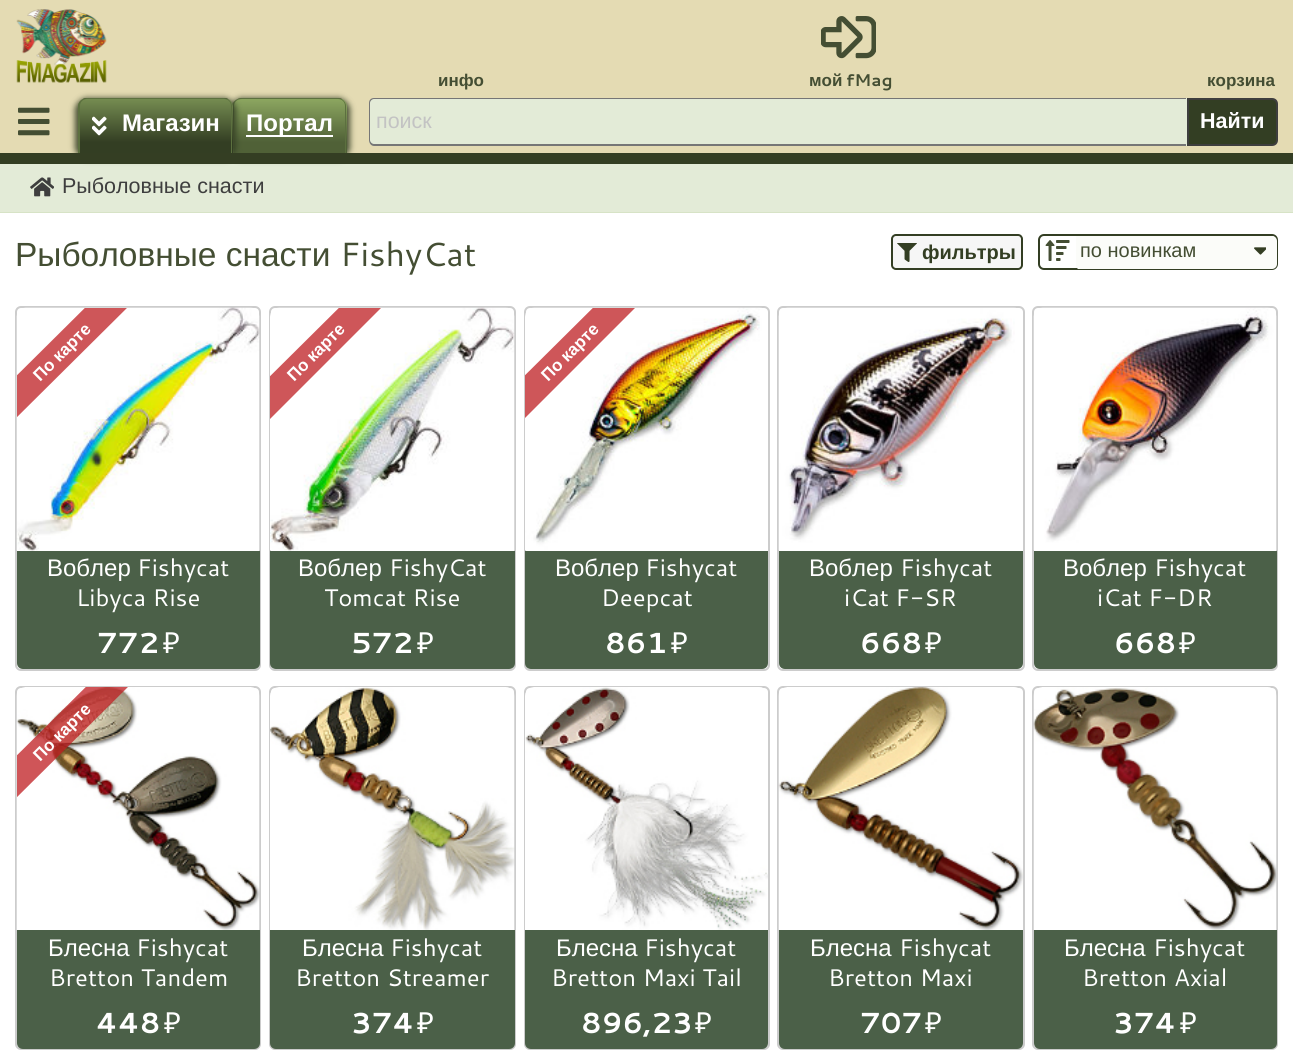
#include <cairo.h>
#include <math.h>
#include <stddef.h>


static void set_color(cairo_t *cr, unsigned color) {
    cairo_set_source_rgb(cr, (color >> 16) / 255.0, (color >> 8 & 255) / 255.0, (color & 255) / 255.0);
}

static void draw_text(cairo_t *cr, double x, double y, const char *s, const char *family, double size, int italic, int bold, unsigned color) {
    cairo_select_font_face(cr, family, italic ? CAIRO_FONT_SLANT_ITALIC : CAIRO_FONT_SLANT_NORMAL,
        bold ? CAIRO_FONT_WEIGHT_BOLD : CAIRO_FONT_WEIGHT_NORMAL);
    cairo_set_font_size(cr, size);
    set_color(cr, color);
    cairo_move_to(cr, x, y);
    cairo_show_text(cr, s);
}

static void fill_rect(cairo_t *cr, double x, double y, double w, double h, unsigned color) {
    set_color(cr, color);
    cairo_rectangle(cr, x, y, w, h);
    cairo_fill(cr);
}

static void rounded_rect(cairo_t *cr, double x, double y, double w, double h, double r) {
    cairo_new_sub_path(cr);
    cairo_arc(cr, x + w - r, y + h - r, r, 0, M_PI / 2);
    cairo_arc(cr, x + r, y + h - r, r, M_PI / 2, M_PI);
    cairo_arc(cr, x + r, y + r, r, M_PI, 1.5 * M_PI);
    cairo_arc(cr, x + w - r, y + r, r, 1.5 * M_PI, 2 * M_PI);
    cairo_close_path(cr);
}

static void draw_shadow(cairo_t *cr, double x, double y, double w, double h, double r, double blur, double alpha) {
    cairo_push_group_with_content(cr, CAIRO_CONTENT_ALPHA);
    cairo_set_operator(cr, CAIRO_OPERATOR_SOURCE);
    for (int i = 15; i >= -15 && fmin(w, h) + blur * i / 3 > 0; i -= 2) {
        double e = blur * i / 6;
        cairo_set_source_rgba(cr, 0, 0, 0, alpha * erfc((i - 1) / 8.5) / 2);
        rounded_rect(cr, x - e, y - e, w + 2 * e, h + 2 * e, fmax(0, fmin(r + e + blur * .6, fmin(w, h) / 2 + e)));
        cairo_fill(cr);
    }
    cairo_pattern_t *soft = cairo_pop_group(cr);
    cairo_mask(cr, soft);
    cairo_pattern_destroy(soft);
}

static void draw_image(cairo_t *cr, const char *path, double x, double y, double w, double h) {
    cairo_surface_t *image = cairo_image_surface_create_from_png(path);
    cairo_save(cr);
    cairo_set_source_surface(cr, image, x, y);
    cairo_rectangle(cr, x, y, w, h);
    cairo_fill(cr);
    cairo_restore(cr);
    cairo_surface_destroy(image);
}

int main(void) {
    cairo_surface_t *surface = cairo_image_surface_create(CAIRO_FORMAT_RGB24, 1293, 1060);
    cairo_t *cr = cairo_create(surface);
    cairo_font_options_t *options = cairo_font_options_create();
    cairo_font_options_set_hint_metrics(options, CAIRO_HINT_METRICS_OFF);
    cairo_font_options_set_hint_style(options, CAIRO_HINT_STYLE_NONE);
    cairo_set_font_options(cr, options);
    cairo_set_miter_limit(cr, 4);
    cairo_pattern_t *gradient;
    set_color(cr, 0xE3EBD7);
    cairo_paint(cr);
    fill_rect(cr, 0, 0, 1293, 153, 0xE4DBB3);
    draw_image(cr, "assets/img1.png", 16, 9, 91, 74);
    draw_text(cr, 438, 86, "инфо", "Liberation Sans", 17, 0, 1, 0x444E33);
    draw_image(cr, "assets/img2.png", 821, 16, 55, 43);
    draw_text(cr, 809, 86, "мой", "Liberation Sans", 17, 0, 1, 0x444E33);
    draw_text(cr, 846, 86, "fMag", "Cantarell", 17, 0, 1, 0x444E33);
    draw_text(cr, 1207, 86, "корзина", "Liberation Sans", 17, 0, 1, 0x444E33);
    draw_image(cr, "assets/img3.png", 18, 107, 32, 29);
    set_color(cr, 0x333E23);
    draw_shadow(cr, 230, 98, 120, 61, 12, 3, 0.9);
    cairo_save(cr);
    cairo_new_path(cr);
    cairo_move_to(cr, 242, 98);
    cairo_line_to(cr, 338, 98);
    cairo_curve_to(cr, 343, 98, 347, 102, 347, 107);
    cairo_line_to(cr, 347, 153);
    cairo_line_to(cr, 233, 153);
    cairo_line_to(cr, 233, 107);
    cairo_curve_to(cr, 233, 102, 237, 98, 242, 98);
    cairo_close_path(cr);
    cairo_clip(cr);
    gradient = cairo_pattern_create_linear(290, 45, 290, 99);
    cairo_pattern_add_color_stop_rgba(gradient, 0, 0.549, 0.651, 0.376, 1);
    cairo_pattern_add_color_stop_rgba(gradient, 0.8, 0.314, 0.38, 0.216, 1);
    cairo_set_source(cr, gradient);
    cairo_pattern_destroy(gradient);
    cairo_rectangle(cr, 233, 98, 114, 1);
    cairo_fill(cr);
    gradient = cairo_pattern_create_linear(290, 99, 290, 153);
    cairo_pattern_add_color_stop_rgba(gradient, 0, 0.549, 0.651, 0.376, 1);
    cairo_pattern_add_color_stop_rgba(gradient, 0.8, 0.314, 0.38, 0.216, 1);
    cairo_set_source(cr, gradient);
    cairo_pattern_destroy(gradient);
    cairo_rectangle(cr, 234, 99, 113, 54);
    cairo_fill(cr);
    cairo_restore(cr);
    set_color(cr, 0x5C703F);
    cairo_set_fill_rule(cr, CAIRO_FILL_RULE_EVEN_ODD);
    cairo_new_path(cr);
    cairo_move_to(cr, 242, 98);
    cairo_line_to(cr, 338, 98);
    cairo_curve_to(cr, 342, 98, 346, 102, 346, 106);
    cairo_line_to(cr, 346, 153);
    cairo_line_to(cr, 232, 153);
    cairo_line_to(cr, 232, 106);
    cairo_curve_to(cr, 232, 102, 237, 98, 242, 98);
    cairo_close_path(cr);
    cairo_move_to(cr, 242, 99);
    cairo_line_to(cr, 338, 99);
    cairo_curve_to(cr, 342, 99, 345, 102, 345, 106);
    cairo_line_to(cr, 345, 153);
    cairo_line_to(cr, 234, 153);
    cairo_line_to(cr, 234, 106);
    cairo_curve_to(cr, 234, 102, 237, 99, 242, 99);
    cairo_close_path(cr);
    cairo_fill(cr);
    set_color(cr, 0x333E23);
    draw_shadow(cr, 75, 98, 161, 61, 12, 3, 0.9);
    cairo_save(cr);
    cairo_set_fill_rule(cr, CAIRO_FILL_RULE_WINDING);
    cairo_new_path(cr);
    cairo_move_to(cr, 87, 98);
    cairo_line_to(cr, 224, 98);
    cairo_curve_to(cr, 229, 98, 233, 102, 233, 107);
    cairo_line_to(cr, 233, 153);
    cairo_line_to(cr, 78, 153);
    cairo_line_to(cr, 78, 107);
    cairo_curve_to(cr, 78, 102, 82, 98, 87, 98);
    cairo_close_path(cr);
    cairo_clip(cr);
    gradient = cairo_pattern_create_linear(155, 45, 155, 99);
    cairo_pattern_add_color_stop_rgba(gradient, 0, 0.459, 0.549, 0.318, 1);
    cairo_pattern_add_color_stop_rgba(gradient, 0.8, 0.2, 0.243, 0.137, 1);
    cairo_set_source(cr, gradient);
    cairo_pattern_destroy(gradient);
    cairo_rectangle(cr, 78, 98, 155, 1);
    cairo_fill(cr);
    gradient = cairo_pattern_create_linear(155, 99, 155, 153);
    cairo_pattern_add_color_stop_rgba(gradient, 0, 0.459, 0.549, 0.318, 1);
    cairo_pattern_add_color_stop_rgba(gradient, 0.8, 0.2, 0.243, 0.137, 1);
    cairo_set_source(cr, gradient);
    cairo_pattern_destroy(gradient);
    cairo_rectangle(cr, 78, 99, 155, 54);
    cairo_fill(cr);
    cairo_restore(cr);
    set_color(cr, 0x5C703F);
    cairo_new_path(cr);
    cairo_move_to(cr, 87, 98);
    cairo_line_to(cr, 224, 98);
    cairo_curve_to(cr, 228, 98, 232, 102, 232, 106);
    cairo_line_to(cr, 232, 153);
    cairo_line_to(cr, 78, 153);
    cairo_line_to(cr, 78, 106);
    cairo_curve_to(cr, 78, 102, 82, 98, 87, 98);
    cairo_close_path(cr);
    cairo_move_to(cr, 87, 99);
    cairo_line_to(cr, 224, 99);
    cairo_curve_to(cr, 228, 99, 231, 102, 231, 106);
    cairo_line_to(cr, 231, 153);
    cairo_line_to(cr, 80, 153);
    cairo_line_to(cr, 80, 106);
    cairo_curve_to(cr, 80, 102, 83, 99, 87, 99);
    cairo_close_path(cr);
    cairo_fill(cr);
    draw_image(cr, "assets/img4.png", 92, 116, 15, 20);
    draw_text(cr, 122, 131, "Магазин", "Liberation Sans", 24, 0, 1, 0xFFFFFF);
    fill_rect(cr, 246, 135, 87, 2, 0xFFFFFF);
    draw_text(cr, 246, 131, "Портал", "Liberation Sans", 24, 0, 1, 0xFFFFFF);
    set_color(cr, 0xE3EBD7);
    cairo_new_path(cr);
    cairo_move_to(cr, 375, 98);
    cairo_line_to(cr, 1187, 98);
    cairo_line_to(cr, 1187, 146);
    cairo_line_to(cr, 375, 146);
    cairo_curve_to(cr, 371.5, 146, 369, 143.5, 369, 140);
    cairo_line_to(cr, 369, 104);
    cairo_curve_to(cr, 369, 100.5, 371.5, 98, 375, 98);
    cairo_close_path(cr);
    cairo_fill(cr);
    set_color(cr, 0x767676);
    cairo_new_path(cr);
    cairo_move_to(cr, 374, 98);
    cairo_line_to(cr, 1186, 98);
    cairo_line_to(cr, 1186, 146);
    cairo_line_to(cr, 374, 146);
    cairo_curve_to(cr, 371, 146, 369, 143, 369, 140);
    cairo_line_to(cr, 369, 103);
    cairo_curve_to(cr, 369, 100, 371, 98, 374, 98);
    cairo_close_path(cr);
    cairo_move_to(cr, 374, 99);
    cairo_line_to(cr, 1186, 99);
    cairo_line_to(cr, 1186, 144);
    cairo_line_to(cr, 374, 144);
    cairo_curve_to(cr, 372, 144, 370, 142, 370, 140);
    cairo_line_to(cr, 370, 103);
    cairo_curve_to(cr, 370, 101, 372, 99, 374, 99);
    cairo_close_path(cr);
    cairo_fill(cr);
    draw_text(cr, 376, 128, "поиск", "Liberation Sans", 21.5, 0, 0, 0xC3C3C3);
    set_color(cr, 0x333E23);
    cairo_new_path(cr);
    cairo_move_to(cr, 1188, 99);
    cairo_line_to(cr, 1272, 99);
    cairo_curve_to(cr, 1275, 99, 1277, 101, 1277, 104);
    cairo_line_to(cr, 1277, 140);
    cairo_curve_to(cr, 1277, 143, 1275, 145, 1272, 145);
    cairo_line_to(cr, 1188, 145);
    cairo_close_path(cr);
    cairo_fill_preserve(cr);
    set_color(cr, 0x3E3E3E);
    cairo_stroke(cr);
    draw_text(cr, 1200, 128, "Найти", "Liberation Sans", 21.5, 0, 1, 0xFFFFFF);
    fill_rect(cr, 0, 153, 1293, 11, 0x343E23);
    fill_rect(cr, 0, 212, 1293, 1, 0xD7E3C6);
    draw_image(cr, "assets/img5.png", 30, 177, 24, 20);
    draw_text(cr, 62, 193, "Рыболовные снасти", "Liberation Sans", 21.5, 0, 0, 0x3E3E3E);
    fill_rect(cr, 0, 213, 1293, 847, 0xFFFFFF);
    draw_text(cr, 15, 266, "Рыболовные снасти", "Liberation Sans", 33.5, 0, 0, 0x444E33);
    draw_text(cr, 340, 266, "FishyCat", "Cantarell", 33.5, 0, 0, 0x444E33);
    set_color(cr, 0xF6F6F6);
    rounded_rect(cr, 892, 235, 130, 34, 4);
    cairo_fill_preserve(cr);
    set_color(cr, 0x333E23);
    cairo_stroke(cr);
    draw_image(cr, "assets/img6.png", 897, 243, 20, 19);
    draw_text(cr, 922, 259, "фильтры", "Liberation Sans", 20, 0, 1, 0x333E23);
    rounded_rect(cr, 1039, 235, 238, 34, 5);
    cairo_stroke(cr);
    draw_image(cr, "assets/img7.png", 1045, 240, 25, 21);
    cairo_save(cr);
    cairo_set_fill_rule(cr, CAIRO_FILL_RULE_WINDING);
    rounded_rect(cr, 1040, 236, 237, 33, 5);
    cairo_clip(cr);
    set_color(cr, 0xFBFCF9);
    rounded_rect(cr, 1076, 233, 201, 37, 5);
    cairo_fill(cr);
    cairo_restore(cr);
    draw_image(cr, "assets/img8.png", 1254, 247, 12, 8);
    draw_text(cr, 1080, 257, "по новинкам", "Liberation Sans", 20, 0, 0, 0x444E33);
    rounded_rect(cr, 16, 307, 244, 363, 5);
    set_color(cr, 0xCCCCCC);
    cairo_stroke(cr);
    draw_image(cr, "assets/img9.png", 16, 307, 244, 244);
    cairo_save(cr);
    cairo_set_fill_rule(cr, CAIRO_FILL_RULE_WINDING);
    cairo_rectangle(cr, 17, 308, 243, 243);
    cairo_clip(cr);
    set_color(cr, 0xCE5659);
    cairo_new_path(cr);
    cairo_move_to(cr, -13, 405);
    cairo_line_to(cr, 115, 278);
    cairo_line_to(cr, 136, 299);
    cairo_line_to(cr, 8, 426);
    cairo_close_path(cr);
    cairo_fill(cr);
    cairo_restore(cr);
    cairo_save(cr);
    cairo_translate(cr, 40, 382);
    cairo_rotate(cr, -45 * M_PI / 180);
    draw_text(cr, 0, 0, "По карте", "Liberation Sans", 17, 0, 1, 0xFFFFFF);
    cairo_restore(cr);
    fill_rect(cr, 17, 551, 243, 66, 0x4B6048);
    draw_text(cr, 47, 576, "Воблер", "Liberation Sans", 24, 0, 0, 0xFFFFFF);
    draw_text(cr, 137, 576, "Fishycat", "Cantarell", 24, 0, 0, 0xFFFFFF);
    draw_text(cr, 76, 606, "Libyca Rise", "Cantarell", 24, 0, 0, 0xFFFFFF);
    set_color(cr, 0x4B6048);
    cairo_new_path(cr);
    cairo_move_to(cr, 17, 617);
    cairo_line_to(cr, 260, 617);
    cairo_line_to(cr, 260, 663);
    cairo_curve_to(cr, 260, 666.5, 257.5, 669, 254, 669);
    cairo_line_to(cr, 23, 669);
    cairo_curve_to(cr, 19.5, 669, 17, 666.5, 17, 663);
    cairo_close_path(cr);
    cairo_fill(cr);
    draw_text(cr, 97, 653, "772", "Cantarell", 29, 0, 1, 0xFFFFFF);
    draw_text(cr, 163, 653, "₽", "Noto Sans", 29, 0, 0, 0xFFFFFF);
    rounded_rect(cr, 270, 307, 245, 363, 5);
    set_color(cr, 0xCCCCCC);
    cairo_stroke(cr);
    draw_image(cr, "assets/img10.png", 270, 307, 245, 244);
    cairo_save(cr);
    cairo_set_fill_rule(cr, CAIRO_FILL_RULE_WINDING);
    cairo_rectangle(cr, 270, 308, 245, 243);
    cairo_clip(cr);
    set_color(cr, 0xCE5659);
    cairo_new_path(cr);
    cairo_move_to(cr, 241, 405);
    cairo_line_to(cr, 369, 278);
    cairo_line_to(cr, 390, 299);
    cairo_line_to(cr, 263, 426);
    cairo_close_path(cr);
    cairo_fill(cr);
    cairo_restore(cr);
    cairo_save(cr);
    cairo_translate(cr, 294, 382);
    cairo_rotate(cr, -45 * M_PI / 180);
    draw_text(cr, 0, 0, "По карте", "Liberation Sans", 17, 0, 1, 0xFFFFFF);
    cairo_restore(cr);
    fill_rect(cr, 270, 551, 245, 66, 0x4B6048);
    draw_text(cr, 298, 576, "Воблер", "Liberation Sans", 24, 0, 0, 0xFFFFFF);
    draw_text(cr, 389, 576, "FishyCat", "Cantarell", 24, 0, 0, 0xFFFFFF);
    draw_text(cr, 324, 606, "Tomcat Rise", "Cantarell", 24, 0, 0, 0xFFFFFF);
    set_color(cr, 0x4B6048);
    cairo_new_path(cr);
    cairo_move_to(cr, 270, 617);
    cairo_line_to(cr, 515, 617);
    cairo_line_to(cr, 515, 663);
    cairo_curve_to(cr, 515, 666.5, 512.5, 669, 509, 669);
    cairo_line_to(cr, 276, 669);
    cairo_curve_to(cr, 272.5, 669, 270, 666.5, 270, 663);
    cairo_close_path(cr);
    cairo_fill(cr);
    draw_text(cr, 351, 653, "572", "Cantarell", 29, 0, 1, 0xFFFFFF);
    draw_text(cr, 417, 653, "₽", "Noto Sans", 29, 0, 0, 0xFFFFFF);
    rounded_rect(cr, 525, 307, 244, 363, 5);
    set_color(cr, 0xCCCCCC);
    cairo_stroke(cr);
    draw_image(cr, "assets/img11.png", 525, 307, 237, 244);
    cairo_save(cr);
    cairo_set_fill_rule(cr, CAIRO_FILL_RULE_WINDING);
    cairo_rectangle(cr, 525, 308, 243, 243);
    cairo_clip(cr);
    set_color(cr, 0xCE5659);
    cairo_new_path(cr);
    cairo_move_to(cr, 495, 405);
    cairo_line_to(cr, 623, 278);
    cairo_line_to(cr, 644, 299);
    cairo_line_to(cr, 517, 426);
    cairo_close_path(cr);
    cairo_fill(cr);
    cairo_restore(cr);
    cairo_save(cr);
    cairo_translate(cr, 548, 382);
    cairo_rotate(cr, -45 * M_PI / 180);
    draw_text(cr, 0, 0, "По карте", "Liberation Sans", 17, 0, 1, 0xFFFFFF);
    cairo_restore(cr);
    fill_rect(cr, 525, 551, 243, 66, 0x4B6048);
    draw_text(cr, 555, 576, "Воблер", "Liberation Sans", 24, 0, 0, 0xFFFFFF);
    draw_text(cr, 645, 576, "Fishycat", "Cantarell", 24, 0, 0, 0xFFFFFF);
    draw_text(cr, 601, 606, "Deepcat", "Cantarell", 24, 0, 0, 0xFFFFFF);
    set_color(cr, 0x4B6048);
    cairo_new_path(cr);
    cairo_move_to(cr, 525, 617);
    cairo_line_to(cr, 768, 617);
    cairo_line_to(cr, 768, 663);
    cairo_curve_to(cr, 768, 666.5, 765.5, 669, 762, 669);
    cairo_line_to(cr, 531, 669);
    cairo_curve_to(cr, 527.5, 669, 525, 666.5, 525, 663);
    cairo_close_path(cr);
    cairo_fill(cr);
    draw_text(cr, 605, 653, "861", "Cantarell", 29, 0, 1, 0xFFFFFF);
    draw_text(cr, 671, 653, "₽", "Noto Sans", 29, 0, 0, 0xFFFFFF);
    rounded_rect(cr, 778, 307, 246, 363, 5);
    set_color(cr, 0xCCCCCC);
    cairo_stroke(cr);
    draw_image(cr, "assets/img12.png", 778, 307, 238, 243);
    fill_rect(cr, 779, 551, 244, 66, 0x4B6048);
    draw_text(cr, 809, 576, "Воблер", "Liberation Sans", 24, 0, 0, 0xFFFFFF);
    draw_text(cr, 900, 576, "Fishycat", "Cantarell", 24, 0, 0, 0xFFFFFF);
    draw_text(cr, 844, 606, "iCat F-SR", "Cantarell", 24, 0, 0, 0xFFFFFF);
    set_color(cr, 0x4B6048);
    cairo_new_path(cr);
    cairo_move_to(cr, 779, 617);
    cairo_line_to(cr, 1023, 617);
    cairo_line_to(cr, 1023, 663);
    cairo_curve_to(cr, 1023, 666.5, 1020.5, 669, 1017, 669);
    cairo_line_to(cr, 785, 669);
    cairo_curve_to(cr, 781.5, 669, 779, 666.5, 779, 663);
    cairo_close_path(cr);
    cairo_fill(cr);
    draw_text(cr, 860, 653, "668", "Cantarell", 29, 0, 1, 0xFFFFFF);
    draw_text(cr, 925, 653, "₽", "Noto Sans", 29, 0, 0, 0xFFFFFF);
    rounded_rect(cr, 1033, 307, 244, 363, 5);
    set_color(cr, 0xCCCCCC);
    cairo_stroke(cr);
    draw_image(cr, "assets/img13.png", 1033, 307, 244, 243);
    fill_rect(cr, 1034, 551, 243, 66, 0x4B6048);
    draw_text(cr, 1063, 576, "Воблер", "Liberation Sans", 24, 0, 0, 0xFFFFFF);
    draw_text(cr, 1154, 576, "Fishycat", "Cantarell", 24, 0, 0, 0xFFFFFF);
    draw_text(cr, 1097, 606, "iCat F-DR", "Cantarell", 24, 0, 0, 0xFFFFFF);
    set_color(cr, 0x4B6048);
    cairo_new_path(cr);
    cairo_move_to(cr, 1034, 617);
    cairo_line_to(cr, 1277, 617);
    cairo_line_to(cr, 1277, 663);
    cairo_curve_to(cr, 1277, 666.5, 1274.5, 669, 1271, 669);
    cairo_line_to(cr, 1040, 669);
    cairo_curve_to(cr, 1036.5, 669, 1034, 666.5, 1034, 663);
    cairo_close_path(cr);
    cairo_fill(cr);
    draw_text(cr, 1114, 653, "668", "Cantarell", 29, 0, 1, 0xFFFFFF);
    draw_text(cr, 1179, 653, "₽", "Noto Sans", 29, 0, 0, 0xFFFFFF);
    rounded_rect(cr, 16, 687, 244, 362, 5);
    set_color(cr, 0xCCCCCC);
    cairo_stroke(cr);
    draw_image(cr, "assets/img14.png", 16, 687, 244, 243);
    cairo_save(cr);
    cairo_set_fill_rule(cr, CAIRO_FILL_RULE_WINDING);
    cairo_rectangle(cr, 17, 687, 243, 243);
    cairo_clip(cr);
    cairo_set_source_rgba(cr, 0.745, 0.114, 0.129, 0.75);
    cairo_new_path(cr);
    cairo_move_to(cr, -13, 785);
    cairo_line_to(cr, 115, 658);
    cairo_line_to(cr, 136, 679);
    cairo_line_to(cr, 8, 806);
    cairo_close_path(cr);
    cairo_fill(cr);
    cairo_restore(cr);
    cairo_save(cr);
    cairo_translate(cr, 40, 762);
    cairo_rotate(cr, -45 * M_PI / 180);
    draw_text(cr, 0, 0, "По карте", "Liberation Sans", 17, 0, 1, 0xFFFFFF);
    cairo_restore(cr);
    fill_rect(cr, 17, 930, 243, 66, 0x4B6048);
    draw_text(cr, 48, 956, "Блесна", "Liberation Sans", 24, 0, 0, 0xFFFFFF);
    draw_text(cr, 136, 956, "Fishycat", "Cantarell", 24, 0, 0, 0xFFFFFF);
    draw_text(cr, 49, 986, "Bretton Tandem", "Cantarell", 24, 0, 0, 0xFFFFFF);
    set_color(cr, 0x4B6048);
    cairo_new_path(cr);
    cairo_move_to(cr, 17, 996);
    cairo_line_to(cr, 260, 996);
    cairo_line_to(cr, 260, 1043);
    cairo_curve_to(cr, 260, 1046.5, 257.5, 1049, 254, 1049);
    cairo_line_to(cr, 23, 1049);
    cairo_curve_to(cr, 19.5, 1049, 17, 1046.5, 17, 1043);
    cairo_close_path(cr);
    cairo_fill(cr);
    draw_text(cr, 96, 1033, "448", "Cantarell", 29, 0, 1, 0xFFFFFF);
    draw_text(cr, 164, 1033, "₽", "Noto Sans", 29, 0, 0, 0xFFFFFF);
    rounded_rect(cr, 270, 687, 245, 362, 5);
    set_color(cr, 0xCCCCCC);
    cairo_stroke(cr);
    draw_image(cr, "assets/img15.png", 270, 687, 245, 243);
    fill_rect(cr, 270, 930, 245, 66, 0x4B6048);
    draw_text(cr, 302, 956, "Блесна", "Liberation Sans", 24, 0, 0, 0xFFFFFF);
    draw_text(cr, 390, 956, "Fishycat", "Cantarell", 24, 0, 0, 0xFFFFFF);
    draw_text(cr, 295, 986, "Bretton Streamer", "Cantarell", 24, 0, 0, 0xFFFFFF);
    set_color(cr, 0x4B6048);
    cairo_new_path(cr);
    cairo_move_to(cr, 270, 996);
    cairo_line_to(cr, 515, 996);
    cairo_line_to(cr, 515, 1043);
    cairo_curve_to(cr, 515, 1046.5, 512.5, 1049, 509, 1049);
    cairo_line_to(cr, 276, 1049);
    cairo_curve_to(cr, 272.5, 1049, 270, 1046.5, 270, 1043);
    cairo_close_path(cr);
    cairo_fill(cr);
    draw_text(cr, 351, 1033, "374", "Cantarell", 29, 0, 1, 0xFFFFFF);
    draw_text(cr, 417, 1033, "₽", "Noto Sans", 29, 0, 0, 0xFFFFFF);
    rounded_rect(cr, 525, 687, 244, 362, 5);
    set_color(cr, 0xCCCCCC);
    cairo_stroke(cr);
    draw_image(cr, "assets/img16.png", 525, 687, 243, 243);
    fill_rect(cr, 525, 930, 243, 66, 0x4B6048);
    draw_text(cr, 556, 956, "Блесна", "Liberation Sans", 24, 0, 0, 0xFFFFFF);
    draw_text(cr, 644, 956, "Fishycat", "Cantarell", 24, 0, 0, 0xFFFFFF);
    draw_text(cr, 551, 986, "Bretton Maxi Tail", "Cantarell", 24, 0, 0, 0xFFFFFF);
    set_color(cr, 0x4B6048);
    cairo_new_path(cr);
    cairo_move_to(cr, 525, 996);
    cairo_line_to(cr, 768, 996);
    cairo_line_to(cr, 768, 1043);
    cairo_curve_to(cr, 768, 1046.5, 765.5, 1049, 762, 1049);
    cairo_line_to(cr, 531, 1049);
    cairo_curve_to(cr, 527.5, 1049, 525, 1046.5, 525, 1043);
    cairo_close_path(cr);
    cairo_fill(cr);
    draw_text(cr, 581, 1033, "896,23", "Cantarell", 29, 0, 1, 0xFFFFFF);
    draw_text(cr, 695, 1033, "₽", "Noto Sans", 29, 0, 0, 0xFFFFFF);
    rounded_rect(cr, 778, 687, 246, 362, 5);
    set_color(cr, 0xCCCCCC);
    cairo_stroke(cr);
    draw_image(cr, "assets/img17.png", 778, 687, 245, 243);
    fill_rect(cr, 779, 930, 244, 66, 0x4B6048);
    draw_text(cr, 810, 956, "Блесна", "Liberation Sans", 24, 0, 0, 0xFFFFFF);
    draw_text(cr, 899, 956, "Fishycat", "Cantarell", 24, 0, 0, 0xFFFFFF);
    draw_text(cr, 828, 986, "Bretton Maxi", "Cantarell", 24, 0, 0, 0xFFFFFF);
    set_color(cr, 0x4B6048);
    cairo_new_path(cr);
    cairo_move_to(cr, 779, 996);
    cairo_line_to(cr, 1023, 996);
    cairo_line_to(cr, 1023, 1043);
    cairo_curve_to(cr, 1023, 1046.5, 1020.5, 1049, 1017, 1049);
    cairo_line_to(cr, 785, 1049);
    cairo_curve_to(cr, 781.5, 1049, 779, 1046.5, 779, 1043);
    cairo_close_path(cr);
    cairo_fill(cr);
    draw_text(cr, 860, 1033, "707", "Cantarell", 29, 0, 1, 0xFFFFFF);
    draw_text(cr, 925, 1033, "₽", "Noto Sans", 29, 0, 0, 0xFFFFFF);
    rounded_rect(cr, 1033, 687, 244, 362, 5);
    set_color(cr, 0xCCCCCC);
    cairo_stroke(cr);
    draw_image(cr, "assets/img18.png", 1033, 687, 244, 243);
    fill_rect(cr, 1034, 930, 243, 66, 0x4B6048);
    draw_text(cr, 1064, 956, "Блесна", "Liberation Sans", 24, 0, 0, 0xFFFFFF);
    draw_text(cr, 1153, 956, "Fishycat", "Cantarell", 24, 0, 0, 0xFFFFFF);
    draw_text(cr, 1082, 986, "Bretton Axial", "Cantarell", 24, 0, 0, 0xFFFFFF);
    set_color(cr, 0x4B6048);
    cairo_new_path(cr);
    cairo_move_to(cr, 1034, 996);
    cairo_line_to(cr, 1277, 996);
    cairo_line_to(cr, 1277, 1043);
    cairo_curve_to(cr, 1277, 1046.5, 1274.5, 1049, 1271, 1049);
    cairo_line_to(cr, 1040, 1049);
    cairo_curve_to(cr, 1036.5, 1049, 1034, 1046.5, 1034, 1043);
    cairo_close_path(cr);
    cairo_fill(cr);
    draw_text(cr, 1113, 1033, "374", "Cantarell", 29, 0, 1, 0xFFFFFF);
    draw_text(cr, 1180, 1033, "₽", "Noto Sans", 29, 0, 0, 0xFFFFFF);
    cairo_surface_write_to_png(surface, "output.png");
    cairo_font_options_destroy(options);
    cairo_destroy(cr);
    cairo_surface_destroy(surface);
    return 0;
}
